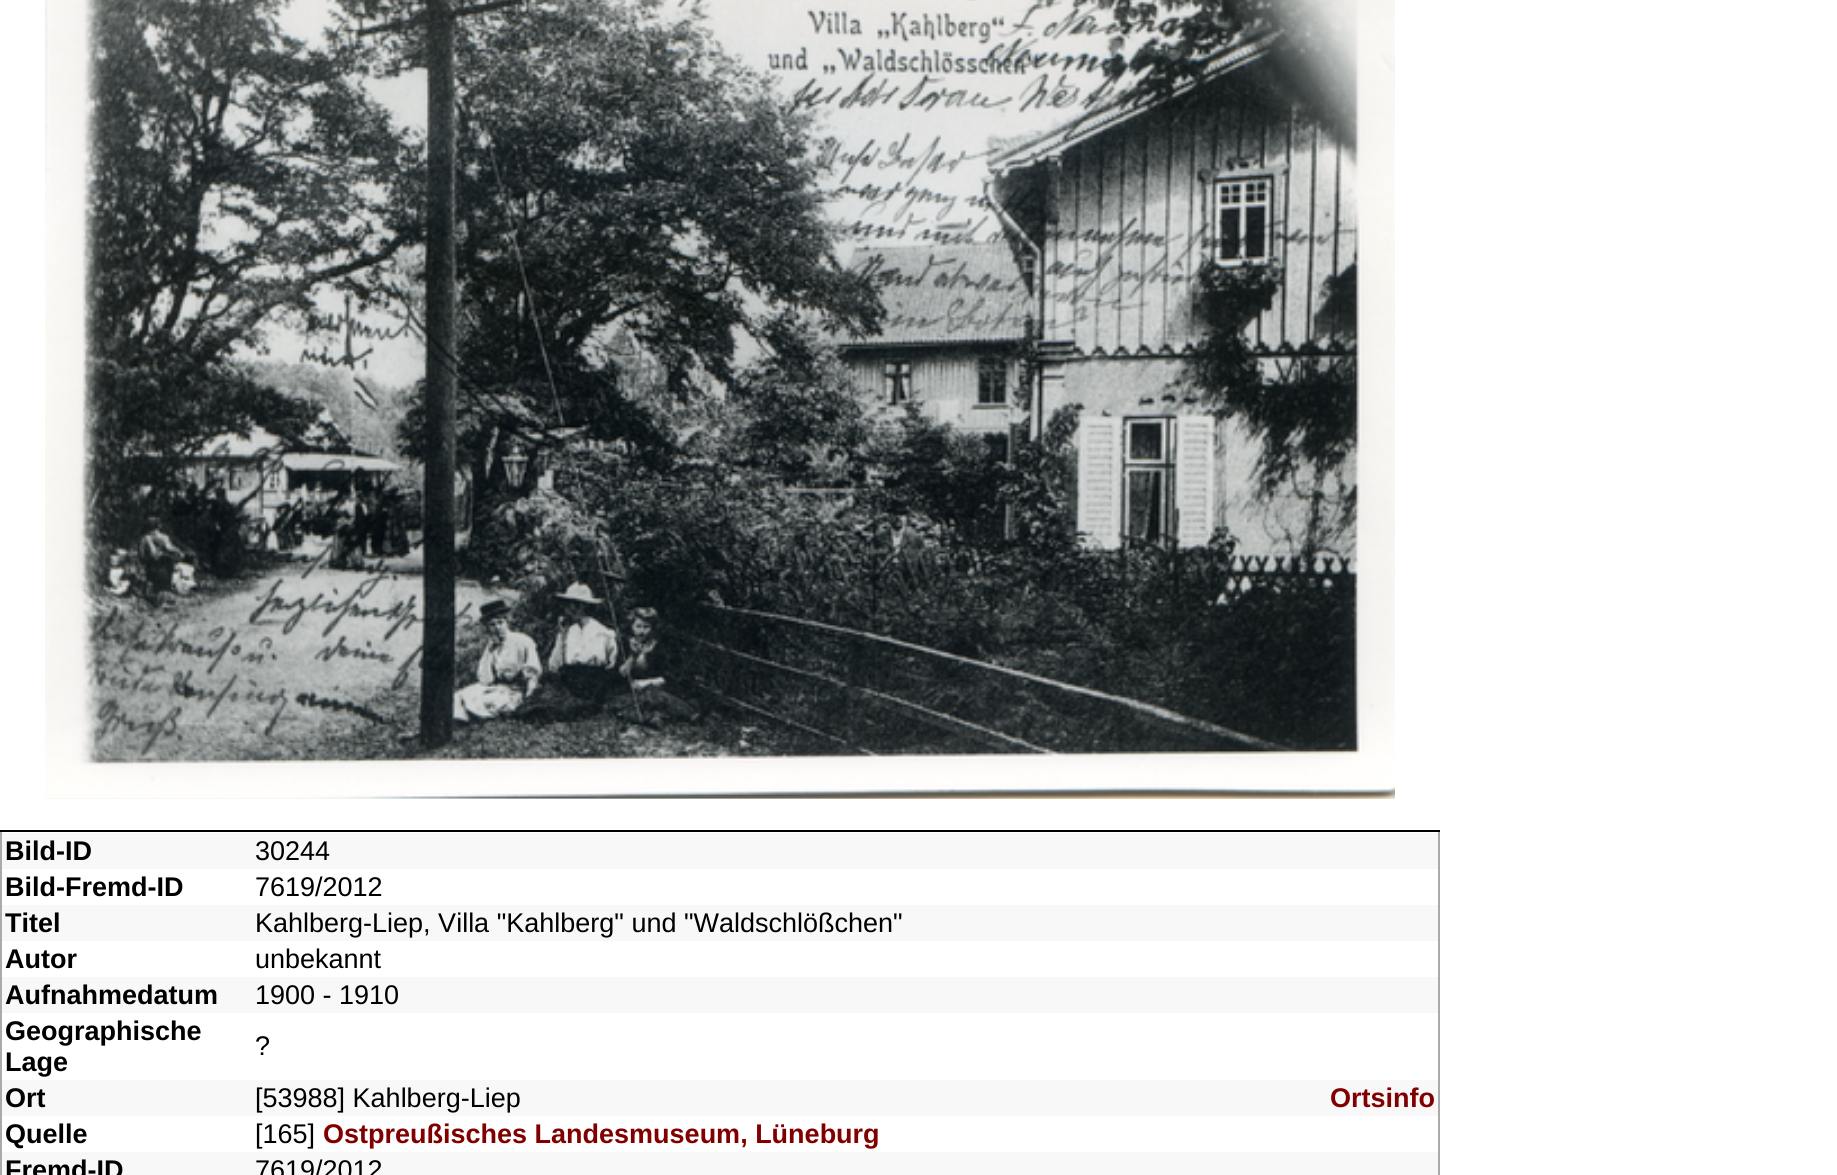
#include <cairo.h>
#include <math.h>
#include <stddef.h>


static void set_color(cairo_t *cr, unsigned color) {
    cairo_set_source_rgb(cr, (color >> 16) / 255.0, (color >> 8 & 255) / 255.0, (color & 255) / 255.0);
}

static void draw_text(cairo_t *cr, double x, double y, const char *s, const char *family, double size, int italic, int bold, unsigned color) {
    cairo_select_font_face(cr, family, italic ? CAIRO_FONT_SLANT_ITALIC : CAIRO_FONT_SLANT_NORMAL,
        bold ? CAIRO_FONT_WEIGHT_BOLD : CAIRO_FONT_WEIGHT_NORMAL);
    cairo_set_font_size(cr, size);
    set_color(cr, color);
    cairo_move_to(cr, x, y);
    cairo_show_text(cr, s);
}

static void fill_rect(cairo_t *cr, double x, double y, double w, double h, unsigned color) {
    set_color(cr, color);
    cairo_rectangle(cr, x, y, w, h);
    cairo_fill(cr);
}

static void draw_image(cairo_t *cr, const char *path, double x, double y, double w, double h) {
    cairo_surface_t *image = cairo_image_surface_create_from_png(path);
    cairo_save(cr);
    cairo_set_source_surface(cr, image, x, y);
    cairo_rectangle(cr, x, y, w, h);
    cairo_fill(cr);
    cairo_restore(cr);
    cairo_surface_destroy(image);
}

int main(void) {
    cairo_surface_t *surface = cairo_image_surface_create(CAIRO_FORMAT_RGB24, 1837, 1175);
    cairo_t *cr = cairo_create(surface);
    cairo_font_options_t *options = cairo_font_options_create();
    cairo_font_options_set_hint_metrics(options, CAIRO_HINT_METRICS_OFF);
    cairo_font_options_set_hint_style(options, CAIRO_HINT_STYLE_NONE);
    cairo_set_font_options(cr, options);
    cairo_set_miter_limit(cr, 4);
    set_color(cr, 0xFFFFFF);
    cairo_paint(cr);
    fill_rect(cr, 45, 798, 1350, 1, 0xEFEFEF);
    draw_image(cr, "assets/img1.png", 45, 0, 1350, 799);
    fill_rect(cr, 1438, 830, 2, 345, 0xAAAAAA);
    fill_rect(cr, 0, 830, 2, 345, 0xAAAAAA);
    fill_rect(cr, 0, 830, 1440, 2, 0x000000);
    fill_rect(cr, 2, 833, 1436, 36, 0xF8F8F8);
    draw_text(cr, 5, 860, "Bild-ID", "Liberation Sans", 27, 0, 1, 0x000000);
    draw_text(cr, 255, 860, "30244", "Liberation Sans", 27, 0, 0, 0x000000);
    draw_text(cr, 5, 896, "Bild-Fremd-ID", "Liberation Sans", 27, 0, 1, 0x000000);
    draw_text(cr, 255, 896, "7619/2012", "Liberation Sans", 27, 0, 0, 0x000000);
    fill_rect(cr, 2, 905, 1436, 36, 0xF8F8F8);
    draw_text(cr, 5, 932, "Titel", "Liberation Sans", 27, 0, 1, 0x000000);
    draw_text(cr, 255, 932, "Kahlberg-Liep, Villa \"Kahlberg\" und \"Waldschlößchen\"", "Liberation Sans", 27, 0, 0, 0x000000);
    draw_text(cr, 5, 968, "Autor", "Liberation Sans", 27, 0, 1, 0x000000);
    draw_text(cr, 255, 968, "unbekannt", "Liberation Sans", 27, 0, 0, 0x000000);
    fill_rect(cr, 2, 977, 1436, 36, 0xF8F8F8);
    draw_text(cr, 5, 1004, "Aufnahmedatum", "Liberation Sans", 27, 0, 1, 0x000000);
    draw_text(cr, 255, 1004, "1900 - 1910", "Liberation Sans", 27, 0, 0, 0x000000);
    draw_text(cr, 5, 1040, "Geographische", "Liberation Sans", 27, 0, 1, 0x000000);
    draw_text(cr, 5, 1071, "Lage", "Liberation Sans", 27, 0, 1, 0x000000);
    draw_text(cr, 255, 1055, "?", "Liberation Sans", 27, 0, 0, 0x000000);
    fill_rect(cr, 2, 1080, 1436, 36, 0xF8F8F8);
    draw_text(cr, 5, 1107, "Ort", "Liberation Sans", 27, 0, 1, 0x000000);
    draw_text(cr, 255, 1107, "[53988] Kahlberg-Liep", "Liberation Sans", 27, 0, 0, 0x000000);
    draw_text(cr, 1330, 1107, "Ortsinfo", "Liberation Sans", 27, 0, 1, 0x800000);
    draw_text(cr, 5, 1143, "Quelle", "Liberation Sans", 27, 0, 1, 0x000000);
    draw_text(cr, 255, 1143, "[165]", "Liberation Sans", 27, 0, 0, 0x000000);
    draw_text(cr, 323, 1143, "Ostpreußisches Landesmuseum, Lüneburg", "Liberation Sans", 27, 0, 1, 0x800000);
    fill_rect(cr, 2, 1152, 1436, 23, 0xF8F8F8);
    draw_text(cr, 5, 1179, "Fremd-ID", "Liberation Sans", 27, 0, 1, 0x000000);
    draw_text(cr, 255, 1179, "7619/2012", "Liberation Sans", 27, 0, 0, 0x000000);
    cairo_surface_write_to_png(surface, "output.png");
    cairo_font_options_destroy(options);
    cairo_destroy(cr);
    cairo_surface_destroy(surface);
    return 0;
}
